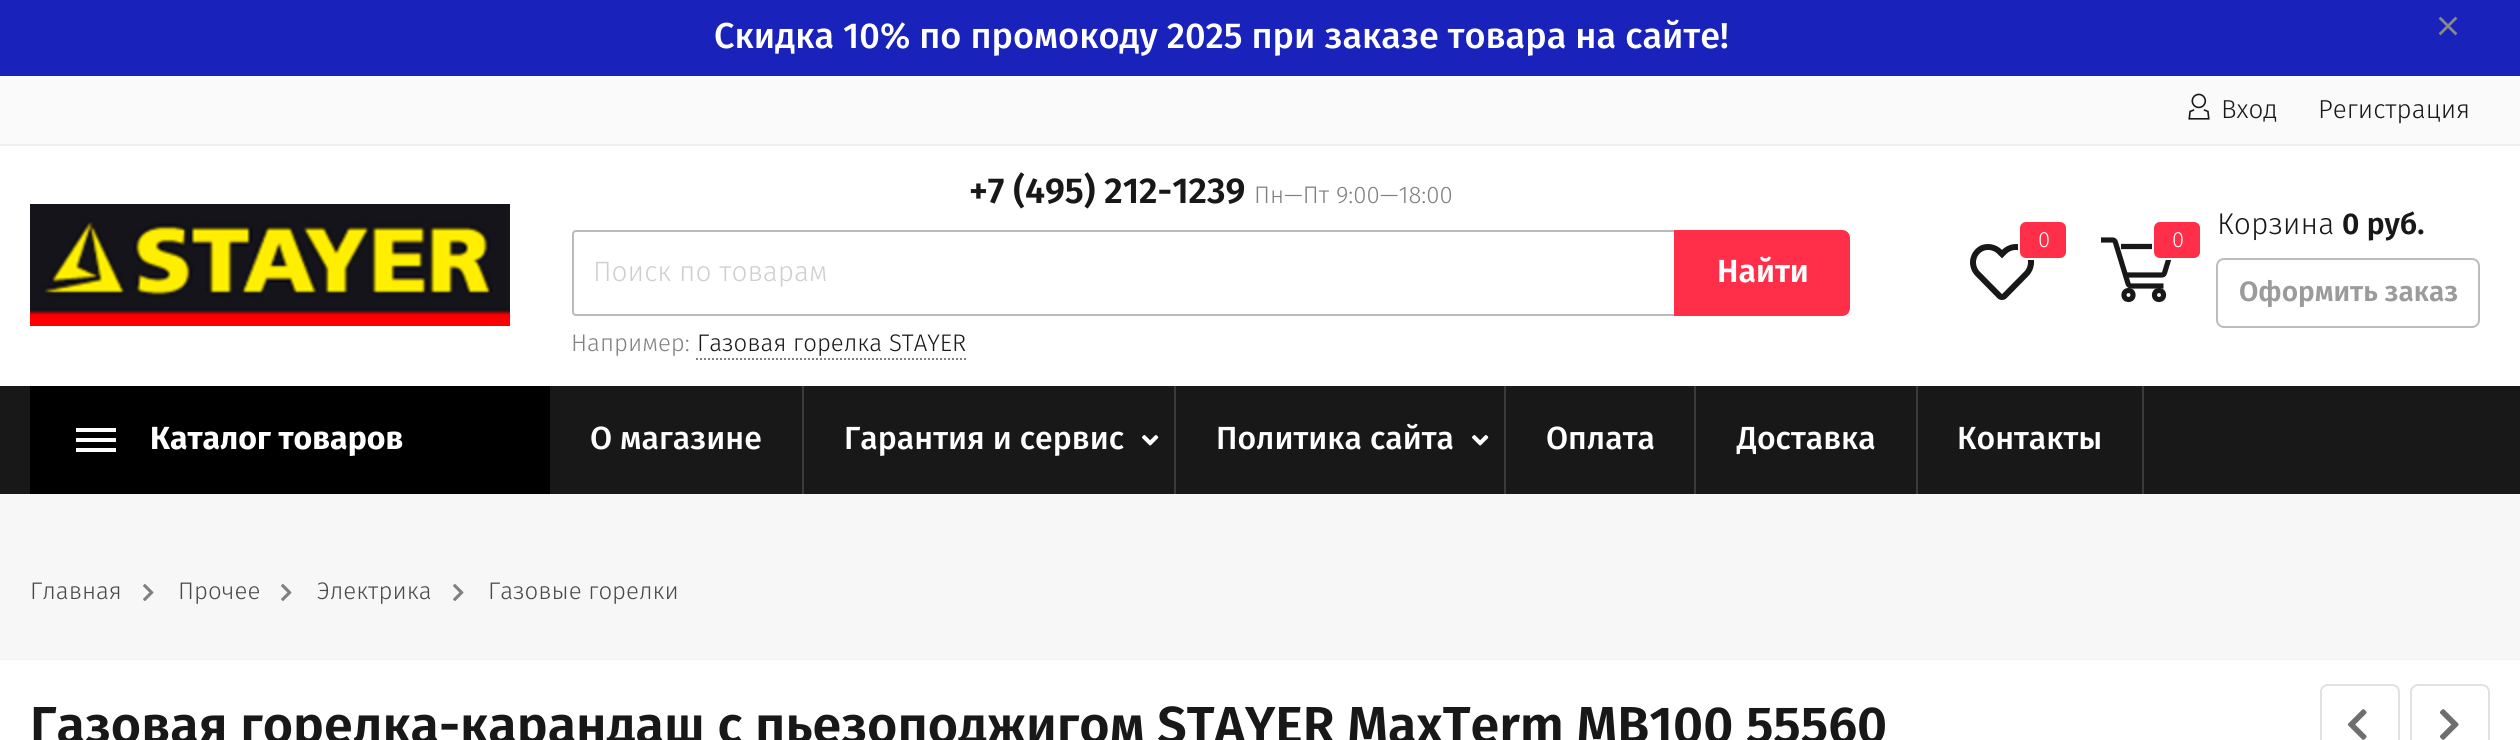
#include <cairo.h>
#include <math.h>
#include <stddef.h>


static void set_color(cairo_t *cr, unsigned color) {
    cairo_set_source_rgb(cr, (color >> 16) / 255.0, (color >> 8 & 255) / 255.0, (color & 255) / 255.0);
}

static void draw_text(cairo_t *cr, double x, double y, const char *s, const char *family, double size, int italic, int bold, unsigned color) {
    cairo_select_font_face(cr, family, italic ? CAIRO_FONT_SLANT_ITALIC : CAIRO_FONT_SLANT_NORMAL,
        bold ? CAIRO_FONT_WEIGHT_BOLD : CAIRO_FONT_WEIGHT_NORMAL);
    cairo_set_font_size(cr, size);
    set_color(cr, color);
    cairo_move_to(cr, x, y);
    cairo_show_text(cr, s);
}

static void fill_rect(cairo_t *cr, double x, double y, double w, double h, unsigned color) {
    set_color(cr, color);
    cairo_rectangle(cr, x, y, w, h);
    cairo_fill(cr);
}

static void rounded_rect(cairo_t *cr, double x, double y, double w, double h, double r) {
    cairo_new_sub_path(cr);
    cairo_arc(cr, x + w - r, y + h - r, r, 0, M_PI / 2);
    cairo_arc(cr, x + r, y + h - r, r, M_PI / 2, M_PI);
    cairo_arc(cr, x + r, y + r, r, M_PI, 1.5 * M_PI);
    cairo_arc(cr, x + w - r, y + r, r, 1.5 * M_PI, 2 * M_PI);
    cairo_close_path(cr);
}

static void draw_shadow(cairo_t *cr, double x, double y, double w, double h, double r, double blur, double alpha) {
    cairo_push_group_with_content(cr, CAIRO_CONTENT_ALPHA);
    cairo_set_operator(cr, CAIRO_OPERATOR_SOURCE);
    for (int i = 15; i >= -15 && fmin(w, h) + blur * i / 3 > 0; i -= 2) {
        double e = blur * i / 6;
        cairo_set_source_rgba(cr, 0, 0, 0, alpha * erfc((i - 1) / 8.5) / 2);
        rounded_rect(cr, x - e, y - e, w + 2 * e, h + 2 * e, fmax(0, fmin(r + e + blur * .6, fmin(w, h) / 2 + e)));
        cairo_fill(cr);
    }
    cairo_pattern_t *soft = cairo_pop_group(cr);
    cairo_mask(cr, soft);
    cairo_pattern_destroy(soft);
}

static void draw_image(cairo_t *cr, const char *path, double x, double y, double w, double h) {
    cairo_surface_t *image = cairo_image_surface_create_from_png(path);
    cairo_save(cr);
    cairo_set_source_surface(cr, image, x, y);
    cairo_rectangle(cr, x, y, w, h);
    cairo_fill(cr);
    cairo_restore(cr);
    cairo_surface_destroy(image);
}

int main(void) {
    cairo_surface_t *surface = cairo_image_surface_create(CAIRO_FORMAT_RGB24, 2520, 740);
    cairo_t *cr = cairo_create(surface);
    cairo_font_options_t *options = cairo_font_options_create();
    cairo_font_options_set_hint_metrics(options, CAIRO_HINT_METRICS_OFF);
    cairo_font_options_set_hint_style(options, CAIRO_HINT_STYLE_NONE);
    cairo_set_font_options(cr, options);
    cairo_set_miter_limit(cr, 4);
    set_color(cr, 0xF7F7F7);
    cairo_paint(cr);
    fill_rect(cr, 0, 0, 2520, 76, 0x1922BB);
    draw_text(cr, 714, 48, "Скидка 10% по промокоду 2025 при заказе товара на сайте!", "Fira Sans Medium", 36, 0, 0, 0xFFFFFF);
    draw_image(cr, "assets/img1.png", 2438, 16, 20, 20);
    fill_rect(cr, 0, 76, 2520, 68, 0xFAFAFA);
    fill_rect(cr, 0, 144, 2520, 2, 0xF0F0F0);
    draw_image(cr, "assets/img2.png", 2188, 93, 22, 27);
    draw_text(cr, 2221, 118, "Вход", "Fira Sans Light", 26, 0, 0, 0x181818);
    draw_text(cr, 2318, 118, "Регистрация", "Fira Sans Light", 26, 0, 0, 0x181818);
    fill_rect(cr, 0, 146, 2520, 240, 0xFFFFFF);
    draw_image(cr, "assets/img3.png", 30, 204, 480, 122);
    draw_text(cr, 969, 203, "+7 (495) 212-1239", "Fira Sans SemiBold", 36, 0, 0, 0x181818);
    draw_text(cr, 1254, 203, "Пн—Пт 9:00—18:00", "Fira Sans Light", 24, 0, 0, 0x808080);
    rounded_rect(cr, 573, 231, 1212, 84, 3);
    set_color(cr, 0xBABABA);
    cairo_stroke(cr);
    draw_text(cr, 593, 281, "Поиск по товарам", "Fira Sans Light", 28, 0, 0, 0xCFCFCF);
    set_color(cr, 0xFF2E49);
    cairo_new_path(cr);
    cairo_move_to(cr, 1675, 231);
    cairo_line_to(cr, 1842, 231);
    cairo_curve_to(cr, 1846, 231, 1849, 234, 1849, 238);
    cairo_line_to(cr, 1849, 308);
    cairo_curve_to(cr, 1849, 312, 1846, 315, 1842, 315);
    cairo_line_to(cr, 1675, 315);
    cairo_close_path(cr);
    cairo_fill_preserve(cr);
    cairo_stroke(cr);
    draw_text(cr, 1717, 282, "Найти", "Fira Sans SemiBold", 32, 0, 0, 0xFFFFFF);
    draw_text(cr, 571, 351, "Например:", "Fira Sans Light", 24, 0, 0, 0x808080);
    draw_text(cr, 697, 351, "Газовая горелка STAYER", "Fira Sans Light", 24, 0, 0, 0x181818);
    cairo_new_path(cr);
    cairo_move_to(cr, 696, 359);
    cairo_line_to(cr, 966, 359);
    set_color(cr, 0x808080);
    cairo_set_dash(cr, (double[]){2, 2}, 2, 0);
    cairo_stroke(cr);
    draw_image(cr, "assets/img4.png", 1970, 244, 65, 56);
    set_color(cr, 0xFF2E49);
    rounded_rect(cr, 2019, 221, 48, 38, 7);
    cairo_fill_preserve(cr);
    set_color(cr, 0xFFFFFF);
    cairo_set_dash(cr, NULL, 0, 0);
    cairo_stroke(cr);
    draw_text(cr, 2038, 247, "0", "Fira Sans Light", 22, 0, 0, 0xFFFFFF);
    cairo_new_path(cr);
    cairo_move_to(cr, 2121, 246.5);
    cairo_line_to(cr, 2170.5, 246.5);
    cairo_curve_to(cr, 2171.5, 246.5, 2172, 247, 2172, 248.5);
    cairo_line_to(cr, 2164.5, 273);
    cairo_curve_to(cr, 2164, 274.5, 2163, 275, 2161.5, 275);
    cairo_line_to(cr, 2125.5, 275);
    set_color(cr, 0x181818);
    cairo_set_line_width(cr, 5.2);
    cairo_stroke(cr);
    cairo_new_path(cr);
    cairo_move_to(cr, 2163.5, 286);
    cairo_line_to(cr, 2131, 286);
    cairo_curve_to(cr, 2129.5, 286, 2128.5, 285, 2128, 283.5);
    cairo_line_to(cr, 2115.5, 242.5);
    cairo_curve_to(cr, 2115, 241, 2114, 240, 2113, 240);
    cairo_line_to(cr, 2101, 240);
    cairo_stroke(cr);
    cairo_arc(cr, 2128.5, 295, 4.5, 0, 2 * M_PI);
    cairo_stroke(cr);
    cairo_arc(cr, 2159, 295, 4.5, 0, 2 * M_PI);
    cairo_stroke(cr);
    set_color(cr, 0xFF2E49);
    rounded_rect(cr, 2153, 221, 48, 38, 7);
    cairo_fill_preserve(cr);
    set_color(cr, 0xFFFFFF);
    cairo_set_line_width(cr, 2);
    cairo_stroke(cr);
    draw_text(cr, 2172, 247, "0", "Fira Sans Light", 22, 0, 0, 0xFFFFFF);
    draw_text(cr, 2217, 234, "Корзина", "Fira Sans Light", 30, 0, 0, 0x181818);
    draw_text(cr, 2342, 234, "0 руб.", "Fira Sans SemiBold", 30, 0, 0, 0x181818);
    rounded_rect(cr, 2217, 259, 262, 68, 7);
    set_color(cr, 0xBCBCBC);
    cairo_stroke(cr);
    draw_text(cr, 2239, 301, "Оформить заказ", "Fira Sans SemiBold", 28, 0, 0, 0x9B9B9B);
    fill_rect(cr, 0, 386, 2520, 108, 0x181818);
    fill_rect(cr, 30, 386, 520, 108, 0x000000);
    fill_rect(cr, 76, 428, 40, 4, 0xFFFFFF);
    fill_rect(cr, 76, 438, 40, 4, 0xFFFFFF);
    fill_rect(cr, 76, 448, 40, 4, 0xFFFFFF);
    draw_text(cr, 150, 449, "Каталог товаров", "Fira Sans", 32, 0, 1, 0xFFFFFF);
    fill_rect(cr, 802, 386, 2, 108, 0x3B3B3B);
    draw_text(cr, 590, 449, "О магазине", "Fira Sans Medium", 32, 0, 0, 0xFFFFFF);
    fill_rect(cr, 1174, 386, 2, 108, 0x3B3B3B);
    draw_text(cr, 844, 449, "Гарантия и сервис", "Fira Sans Medium", 32, 0, 0, 0xFFFFFF);
    draw_image(cr, "assets/img5.png", 1142, 435, 17, 11);
    fill_rect(cr, 1504, 386, 2, 108, 0x3B3B3B);
    draw_text(cr, 1216, 449, "Политика сайта", "Fira Sans Medium", 32, 0, 0, 0xFFFFFF);
    draw_image(cr, "assets/img5.png", 1472, 435, 17, 11);
    fill_rect(cr, 1694, 386, 2, 108, 0x3B3B3B);
    draw_text(cr, 1546, 449, "Оплата", "Fira Sans Medium", 32, 0, 0, 0xFFFFFF);
    fill_rect(cr, 1916, 386, 2, 108, 0x3B3B3B);
    draw_text(cr, 1737, 449, "Доставка", "Fira Sans Medium", 32, 0, 0, 0xFFFFFF);
    fill_rect(cr, 2142, 386, 2, 108, 0x3B3B3B);
    draw_text(cr, 1957, 449, "Контакты", "Fira Sans Medium", 32, 0, 0, 0xFFFFFF);
    draw_text(cr, 30, 599, "Главная", "Fira Sans Light", 24, 0, 0, 0x494949);
    draw_image(cr, "assets/img6.png", 143, 584, 11, 17);
    draw_text(cr, 178, 599, "Прочее", "Fira Sans Light", 24, 0, 0, 0x494949);
    draw_image(cr, "assets/img6.png", 281, 584, 11, 17);
    draw_text(cr, 317, 599, "Электрика", "Fira Sans Light", 24, 0, 0, 0x494949);
    draw_image(cr, "assets/img6.png", 453, 584, 11, 17);
    draw_text(cr, 488, 599, "Газовые горелки", "Fira Sans Light", 24, 0, 0, 0x494949);
    set_color(cr, 0x000000);
    draw_shadow(cr, 0, 662, 2520, 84, 0, 2, 0.2);
    fill_rect(cr, 0, 660, 2520, 80, 0xFFFFFF);
    draw_text(cr, 30, 743, "Газовая горелка-карандаш с пьезоподжигом STAYER MaxTerm MB100 55560", "Fira Sans SemiBold", 52, 0, 0, 0x181818);
    rounded_rect(cr, 2321, 685, 78, 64, 7);
    set_color(cr, 0xE1E1E1);
    cairo_stroke(cr);
    draw_image(cr, "assets/img7.png", 2347, 709, 20, 31);
    rounded_rect(cr, 2411, 685, 78, 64, 7);
    cairo_stroke(cr);
    draw_image(cr, "assets/img8.png", 2440, 709, 19, 31);
    cairo_surface_write_to_png(surface, "output.png");
    cairo_font_options_destroy(options);
    cairo_destroy(cr);
    cairo_surface_destroy(surface);
    return 0;
}
